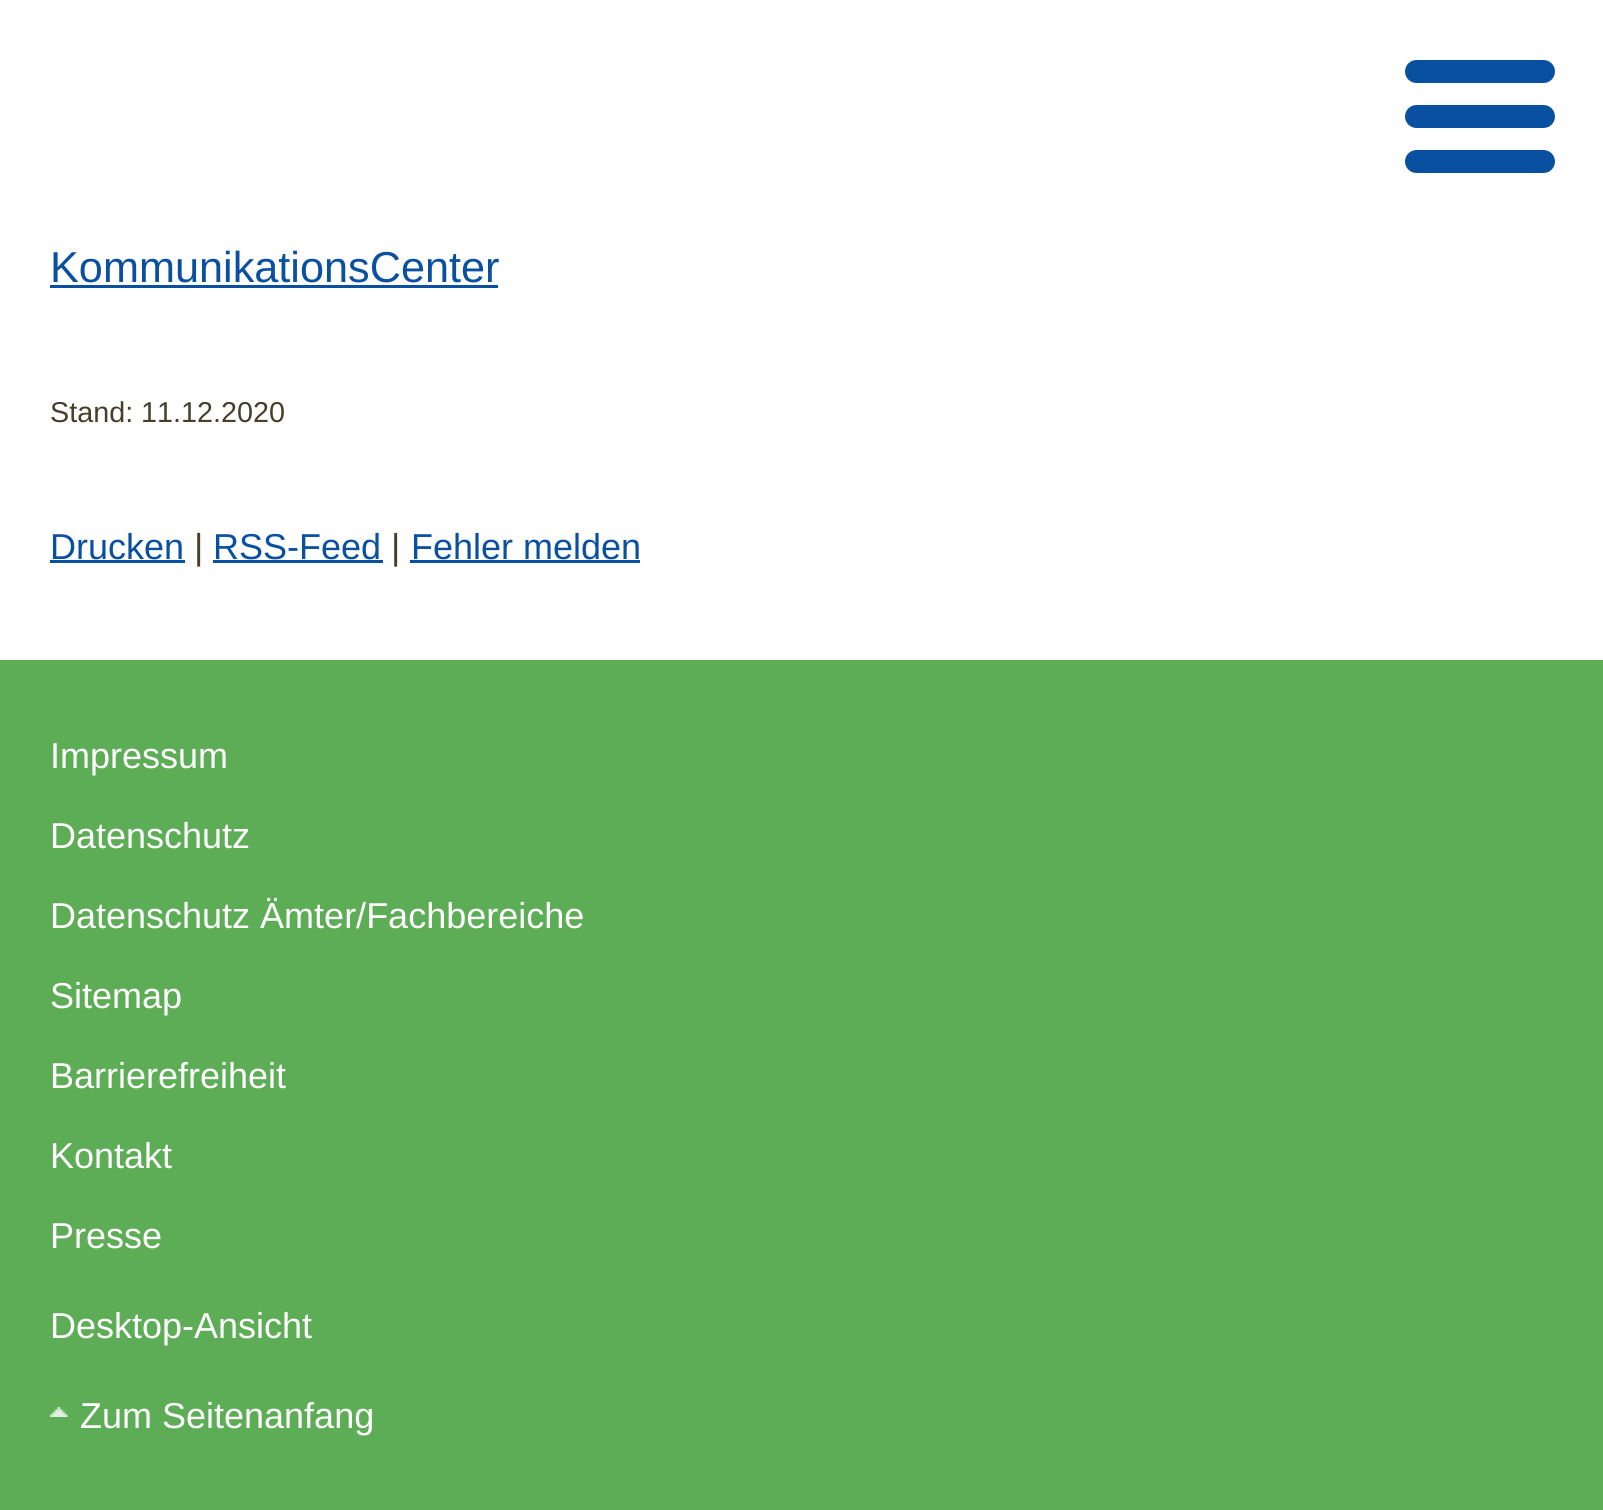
#include <cairo.h>
#include <math.h>
#include <stddef.h>


static void set_color(cairo_t *cr, unsigned color) {
    cairo_set_source_rgb(cr, (color >> 16) / 255.0, (color >> 8 & 255) / 255.0, (color & 255) / 255.0);
}

static void draw_text(cairo_t *cr, double x, double y, const char *s, const char *family, double size, int italic, int bold, unsigned color) {
    cairo_select_font_face(cr, family, italic ? CAIRO_FONT_SLANT_ITALIC : CAIRO_FONT_SLANT_NORMAL,
        bold ? CAIRO_FONT_WEIGHT_BOLD : CAIRO_FONT_WEIGHT_NORMAL);
    cairo_set_font_size(cr, size);
    set_color(cr, color);
    cairo_move_to(cr, x, y);
    cairo_show_text(cr, s);
}

static void fill_rect(cairo_t *cr, double x, double y, double w, double h, unsigned color) {
    set_color(cr, color);
    cairo_rectangle(cr, x, y, w, h);
    cairo_fill(cr);
}

static void rounded_rect(cairo_t *cr, double x, double y, double w, double h, double r) {
    cairo_new_sub_path(cr);
    cairo_arc(cr, x + w - r, y + h - r, r, 0, M_PI / 2);
    cairo_arc(cr, x + r, y + h - r, r, M_PI / 2, M_PI);
    cairo_arc(cr, x + r, y + r, r, M_PI, 1.5 * M_PI);
    cairo_arc(cr, x + w - r, y + r, r, 1.5 * M_PI, 2 * M_PI);
    cairo_close_path(cr);
}

static void draw_image(cairo_t *cr, const char *path, double x, double y, double w, double h) {
    cairo_surface_t *image = cairo_image_surface_create_from_png(path);
    cairo_save(cr);
    cairo_set_source_surface(cr, image, x, y);
    cairo_rectangle(cr, x, y, w, h);
    cairo_fill(cr);
    cairo_restore(cr);
    cairo_surface_destroy(image);
}

int main(void) {
    cairo_surface_t *surface = cairo_image_surface_create(CAIRO_FORMAT_RGB24, 1603, 1510);
    cairo_t *cr = cairo_create(surface);
    cairo_font_options_t *options = cairo_font_options_create();
    cairo_font_options_set_hint_metrics(options, CAIRO_HINT_METRICS_OFF);
    cairo_font_options_set_hint_style(options, CAIRO_HINT_STYLE_NONE);
    cairo_set_font_options(cr, options);
    cairo_set_miter_limit(cr, 4);
    set_color(cr, 0xFFFFFF);
    cairo_paint(cr);
    set_color(cr, 0x0A50A1);
    rounded_rect(cr, 1405, 60, 150, 23, 11.5);
    cairo_fill(cr);
    rounded_rect(cr, 1405, 105, 150, 23, 11.5);
    cairo_fill(cr);
    rounded_rect(cr, 1405, 150, 150, 23, 11.5);
    cairo_fill(cr);
    draw_text(cr, 50, 282, "KommunikationsCenter", "Liberation Sans", 43.25, 0, 0, 0x0A50A1);
    fill_rect(cr, 50, 285, 448, 3, 0x0A50A1);
    draw_text(cr, 50, 422, "Stand: 11.12.2020", "Liberation Sans", 28.75, 0, 0, 0x473F2A);
    draw_text(cr, 50, 559, "Drucken", "Liberation Sans", 36, 0, 0, 0x0A50A1);
    fill_rect(cr, 50, 560, 135, 3, 0x0A50A1);
    draw_text(cr, 194, 559, "|", "Liberation Sans", 36, 0, 0, 0x473F2A);
    draw_text(cr, 213, 559, "RSS-Feed", "Liberation Sans", 36, 0, 0, 0x0A50A1);
    fill_rect(cr, 213, 560, 170, 3, 0x0A50A1);
    draw_text(cr, 391, 559, "|", "Liberation Sans", 36, 0, 0, 0x473F2A);
    draw_text(cr, 411, 559, "Fehler melden", "Liberation Sans", 36, 0, 0, 0x0A50A1);
    fill_rect(cr, 410, 560, 230, 3, 0x0A50A1);
    fill_rect(cr, 0, 660, 1603, 850, 0x5CAD55);
    draw_text(cr, 50, 768, "Impressum", "Liberation Sans", 36, 0, 0, 0xFFFFFF);
    draw_text(cr, 50, 848, "Datenschutz", "Liberation Sans", 36, 0, 0, 0xFFFFFF);
    draw_text(cr, 50, 928, "Datenschutz Ämter/Fachbereiche", "Liberation Sans", 36, 0, 0, 0xFFFFFF);
    draw_text(cr, 50, 1008, "Sitemap", "Liberation Sans", 36, 0, 0, 0xFFFFFF);
    draw_text(cr, 50, 1088, "Barrierefreiheit", "Liberation Sans", 36, 0, 0, 0xFFFFFF);
    draw_text(cr, 50, 1168, "Kontakt", "Liberation Sans", 36, 0, 0, 0xFFFFFF);
    draw_text(cr, 50, 1248, "Presse", "Liberation Sans", 36, 0, 0, 0xFFFFFF);
    draw_text(cr, 50, 1338, "Desktop-Ansicht", "Liberation Sans", 36, 0, 0, 0xFFFFFF);
    draw_image(cr, "assets/img1.png", 50, 1407, 18, 10);
    draw_text(cr, 80, 1428, "Zum Seitenanfang", "Liberation Sans", 36, 0, 0, 0xFFFFFF);
    cairo_surface_write_to_png(surface, "output.png");
    cairo_font_options_destroy(options);
    cairo_destroy(cr);
    cairo_surface_destroy(surface);
    return 0;
}
